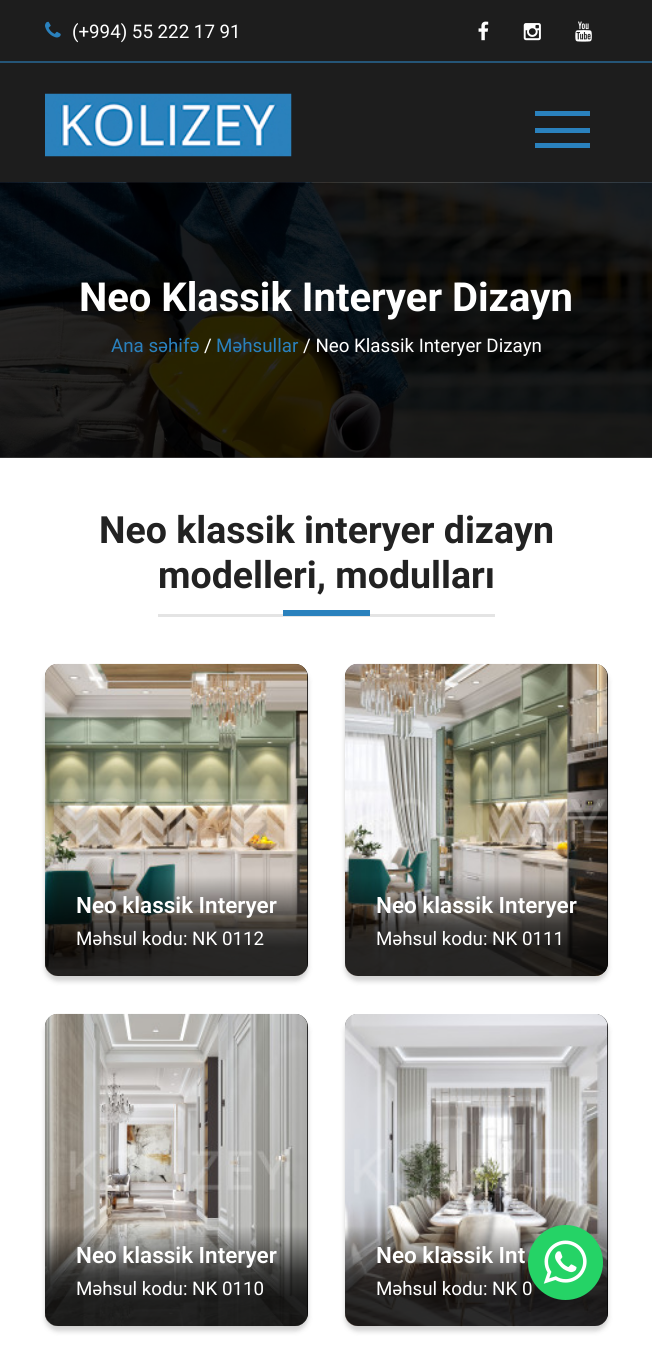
#include <cairo.h>
#include <math.h>
#include <stddef.h>


static void set_color(cairo_t *cr, unsigned color) {
    cairo_set_source_rgb(cr, (color >> 16) / 255.0, (color >> 8 & 255) / 255.0, (color & 255) / 255.0);
}

static void draw_text(cairo_t *cr, double x, double y, const char *s, const char *family, double size, int italic, int bold, unsigned color) {
    cairo_select_font_face(cr, family, italic ? CAIRO_FONT_SLANT_ITALIC : CAIRO_FONT_SLANT_NORMAL,
        bold ? CAIRO_FONT_WEIGHT_BOLD : CAIRO_FONT_WEIGHT_NORMAL);
    cairo_set_font_size(cr, size);
    set_color(cr, color);
    cairo_move_to(cr, x, y);
    cairo_show_text(cr, s);
}

static void fill_rect(cairo_t *cr, double x, double y, double w, double h, unsigned color) {
    set_color(cr, color);
    cairo_rectangle(cr, x, y, w, h);
    cairo_fill(cr);
}

static void rounded_rect(cairo_t *cr, double x, double y, double w, double h, double r) {
    cairo_new_sub_path(cr);
    cairo_arc(cr, x + w - r, y + h - r, r, 0, M_PI / 2);
    cairo_arc(cr, x + r, y + h - r, r, M_PI / 2, M_PI);
    cairo_arc(cr, x + r, y + r, r, M_PI, 1.5 * M_PI);
    cairo_arc(cr, x + w - r, y + r, r, 1.5 * M_PI, 2 * M_PI);
    cairo_close_path(cr);
}

static void draw_shadow(cairo_t *cr, double x, double y, double w, double h, double r, double blur, double alpha) {
    cairo_push_group_with_content(cr, CAIRO_CONTENT_ALPHA);
    cairo_set_operator(cr, CAIRO_OPERATOR_SOURCE);
    for (int i = 15; i >= -15 && fmin(w, h) + blur * i / 3 > 0; i -= 2) {
        double e = blur * i / 6;
        cairo_set_source_rgba(cr, 0, 0, 0, alpha * erfc((i - 1) / 8.5) / 2);
        rounded_rect(cr, x - e, y - e, w + 2 * e, h + 2 * e, fmax(0, fmin(r + e + blur * .6, fmin(w, h) / 2 + e)));
        cairo_fill(cr);
    }
    cairo_pattern_t *soft = cairo_pop_group(cr);
    cairo_mask(cr, soft);
    cairo_pattern_destroy(soft);
}

static void draw_image(cairo_t *cr, const char *path, double x, double y, double w, double h) {
    cairo_surface_t *image = cairo_image_surface_create_from_png(path);
    cairo_save(cr);
    cairo_set_source_surface(cr, image, x, y);
    cairo_rectangle(cr, x, y, w, h);
    cairo_fill(cr);
    cairo_restore(cr);
    cairo_surface_destroy(image);
}

int main(void) {
    cairo_surface_t *surface = cairo_image_surface_create(CAIRO_FORMAT_RGB24, 652, 1350);
    cairo_t *cr = cairo_create(surface);
    cairo_font_options_t *options = cairo_font_options_create();
    cairo_font_options_set_hint_metrics(options, CAIRO_HINT_METRICS_OFF);
    cairo_font_options_set_hint_style(options, CAIRO_HINT_STYLE_NONE);
    cairo_set_font_options(cr, options);
    cairo_set_miter_limit(cr, 4);
    cairo_pattern_t *gradient;
    set_color(cr, 0xFFFFFF);
    cairo_paint(cr);
    fill_rect(cr, 0, 457, 652, 1, 0x4F4F4F);
    fill_rect(cr, 0, 0, 652, 183, 0x1D1D1D);
    set_color(cr, 0x255577);
    cairo_new_path(cr);
    cairo_move_to(cr, 0, 61);
    cairo_line_to(cr, 0, 63);
    cairo_line_to(cr, 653, 63);
    cairo_line_to(cr, 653, 1);
    cairo_line_to(cr, 652, 1);
    cairo_line_to(cr, 652, 61);
    cairo_close_path(cr);
    cairo_fill(cr);
    draw_image(cr, "assets/img1.png", 45, 21, 16, 17);
    draw_text(cr, 72, 38, "(+994) 55 222 17 91", "Roboto", 18.75, 0, 0, 0xFFFFFF);
    draw_image(cr, "assets/img2.png", 478, 21, 11, 20);
    draw_image(cr, "assets/img3.png", 523, 23, 18, 18);
    draw_image(cr, "assets/img4.png", 575, 21, 17, 21);
    draw_image(cr, "assets/img5.png", 45, 93, 247, 64);
    fill_rect(cr, 535, 111, 55, 5, 0x2A81BD);
    fill_rect(cr, 535, 143, 55, 5, 0x2A81BD);
    fill_rect(cr, 535, 128, 55, 5, 0x2A81BD);
    draw_image(cr, "assets/img6.png", 0, 182, 652, 276);
    draw_text(cr, 79, 311, "Neo Klassik Interyer Dizayn", "Roboto", 40, 0, 1, 0xFFFFFF);
    draw_text(cr, 111, 352, "Ana səhifə", "Roboto", 18.75, 0, 0, 0x2A81BD);
    draw_text(cr, 204, 352, "/", "Roboto", 18.75, 0, 0, 0xFFFFFF);
    draw_text(cr, 216, 352, "Məhsullar", "Roboto", 18.75, 0, 0, 0x2A81BD);
    draw_text(cr, 303, 352, "/ Neo Klassik Interyer Dizayn", "Roboto", 18.75, 0, 0, 0xFFFFFF);
    draw_text(cr, 99, 543, "Neo klassik interyer dizayn", "Roboto", 37.5, 0, 1, 0x222222);
    draw_text(cr, 158, 588, "modelleri, modulları", "Roboto", 37.5, 0, 1, 0x222222);
    fill_rect(cr, 158, 614, 337, 3, 0xE4E4E4);
    fill_rect(cr, 283, 610, 87, 6, 0x2A81BD);
    set_color(cr, 0x000000);
    draw_shadow(cr, 45, 669, 263, 312, 13, 2.5, 0.18);
    set_color(cr, 0x000000);
    rounded_rect(cr, 45, 664, 263, 312, 13);
    cairo_fill(cr);
    draw_image(cr, "assets/img7.png", 45, 663, 263, 313);
    gradient = cairo_pattern_create_linear(176, 876, 176, 976);
    cairo_pattern_add_color_stop_rgba(gradient, 0, 0, 0, 0, 0);
    cairo_pattern_add_color_stop_rgba(gradient, 0.49, 0, 0, 0, 0.69);
    cairo_pattern_add_color_stop_rgba(gradient, 0.71, 0, 0, 0, 0.83);
    cairo_pattern_add_color_stop_rgba(gradient, 1, 0, 0, 0, 0.83);
    cairo_set_source(cr, gradient);
    cairo_pattern_destroy(gradient);
    cairo_new_path(cr);
    cairo_move_to(cr, 45, 876);
    cairo_line_to(cr, 308, 876);
    cairo_line_to(cr, 308, 963);
    cairo_curve_to(cr, 308, 970, 302, 976, 295, 976);
    cairo_line_to(cr, 58, 976);
    cairo_curve_to(cr, 51, 976, 45, 970, 45, 963);
    cairo_close_path(cr);
    cairo_fill(cr);
    draw_text(cr, 76, 913, "Neo klassik Interyer", "Roboto SemiBold", 22.5, 0, 0, 0xFFFFFF);
    draw_text(cr, 76, 945, "Məhsul kodu: NK 0112", "Roboto", 18.75, 0, 0, 0xFFFFFF);
    set_color(cr, 0x000000);
    draw_shadow(cr, 345, 669, 263, 312, 13, 2.5, 0.18);
    set_color(cr, 0x000000);
    rounded_rect(cr, 345, 664, 263, 312, 13);
    cairo_fill(cr);
    draw_image(cr, "assets/img8.png", 345, 663, 263, 314);
    gradient = cairo_pattern_create_linear(476, 876, 476, 976);
    cairo_pattern_add_color_stop_rgba(gradient, 0, 0, 0, 0, 0);
    cairo_pattern_add_color_stop_rgba(gradient, 0.49, 0, 0, 0, 0.69);
    cairo_pattern_add_color_stop_rgba(gradient, 0.71, 0, 0, 0, 0.83);
    cairo_pattern_add_color_stop_rgba(gradient, 1, 0, 0, 0, 0.83);
    cairo_set_source(cr, gradient);
    cairo_pattern_destroy(gradient);
    cairo_new_path(cr);
    cairo_move_to(cr, 345, 876);
    cairo_line_to(cr, 608, 876);
    cairo_line_to(cr, 608, 963);
    cairo_curve_to(cr, 608, 970, 602, 976, 595, 976);
    cairo_line_to(cr, 358, 976);
    cairo_curve_to(cr, 351, 976, 345, 970, 345, 963);
    cairo_close_path(cr);
    cairo_fill(cr);
    draw_text(cr, 376, 913, "Neo klassik Interyer", "Roboto SemiBold", 22.5, 0, 0, 0xFFFFFF);
    draw_text(cr, 376, 945, "Məhsul kodu: NK 0111", "Roboto", 18.75, 0, 0, 0xFFFFFF);
    set_color(cr, 0x000000);
    draw_shadow(cr, 45, 1019, 263, 312, 13, 2.5, 0.18);
    set_color(cr, 0x000000);
    rounded_rect(cr, 45, 1014, 263, 312, 13);
    cairo_fill(cr);
    draw_image(cr, "assets/img9.png", 45, 1013, 263, 314);
    gradient = cairo_pattern_create_linear(176, 1226, 176, 1326);
    cairo_pattern_add_color_stop_rgba(gradient, 0, 0, 0, 0, 0);
    cairo_pattern_add_color_stop_rgba(gradient, 0.49, 0, 0, 0, 0.69);
    cairo_pattern_add_color_stop_rgba(gradient, 0.71, 0, 0, 0, 0.83);
    cairo_pattern_add_color_stop_rgba(gradient, 1, 0, 0, 0, 0.83);
    cairo_set_source(cr, gradient);
    cairo_pattern_destroy(gradient);
    cairo_new_path(cr);
    cairo_move_to(cr, 45, 1226);
    cairo_line_to(cr, 308, 1226);
    cairo_line_to(cr, 308, 1313);
    cairo_curve_to(cr, 308, 1320, 302, 1326, 295, 1326);
    cairo_line_to(cr, 58, 1326);
    cairo_curve_to(cr, 51, 1326, 45, 1320, 45, 1313);
    cairo_close_path(cr);
    cairo_fill(cr);
    draw_text(cr, 76, 1263, "Neo klassik Interyer", "Roboto SemiBold", 22.5, 0, 0, 0xFFFFFF);
    draw_text(cr, 76, 1295, "Məhsul kodu: NK 0110", "Roboto", 18.75, 0, 0, 0xFFFFFF);
    set_color(cr, 0x000000);
    draw_shadow(cr, 345, 1019, 263, 312, 13, 2.5, 0.18);
    set_color(cr, 0x000000);
    rounded_rect(cr, 345, 1014, 263, 312, 13);
    cairo_fill(cr);
    draw_image(cr, "assets/img10.png", 345, 1014, 263, 313);
    gradient = cairo_pattern_create_linear(476, 1226, 476, 1326);
    cairo_pattern_add_color_stop_rgba(gradient, 0, 0, 0, 0, 0);
    cairo_pattern_add_color_stop_rgba(gradient, 0.49, 0, 0, 0, 0.69);
    cairo_pattern_add_color_stop_rgba(gradient, 0.71, 0, 0, 0, 0.83);
    cairo_pattern_add_color_stop_rgba(gradient, 1, 0, 0, 0, 0.83);
    cairo_set_source(cr, gradient);
    cairo_pattern_destroy(gradient);
    cairo_new_path(cr);
    cairo_move_to(cr, 345, 1226);
    cairo_line_to(cr, 608, 1226);
    cairo_line_to(cr, 608, 1313);
    cairo_curve_to(cr, 608, 1320, 602, 1326, 595, 1326);
    cairo_line_to(cr, 358, 1326);
    cairo_curve_to(cr, 351, 1326, 345, 1320, 345, 1313);
    cairo_close_path(cr);
    cairo_fill(cr);
    draw_text(cr, 376, 1263, "Neo klassik Int", "Roboto SemiBold", 22.5, 0, 0, 0xFFFFFF);
    draw_text(cr, 376, 1295, "Məhsul kodu: NK 0", "Roboto", 18.75, 0, 0, 0xFFFFFF);
    set_color(cr, 0x25D366);
    cairo_new_path(cr);
    cairo_arc(cr, 565.5, 1262.5, 37.5, 0, 2 * M_PI);
    cairo_fill(cr);
    draw_image(cr, "assets/img11.png", 543, 1240, 44, 44);
    cairo_surface_write_to_png(surface, "output.png");
    cairo_font_options_destroy(options);
    cairo_destroy(cr);
    cairo_surface_destroy(surface);
    return 0;
}
